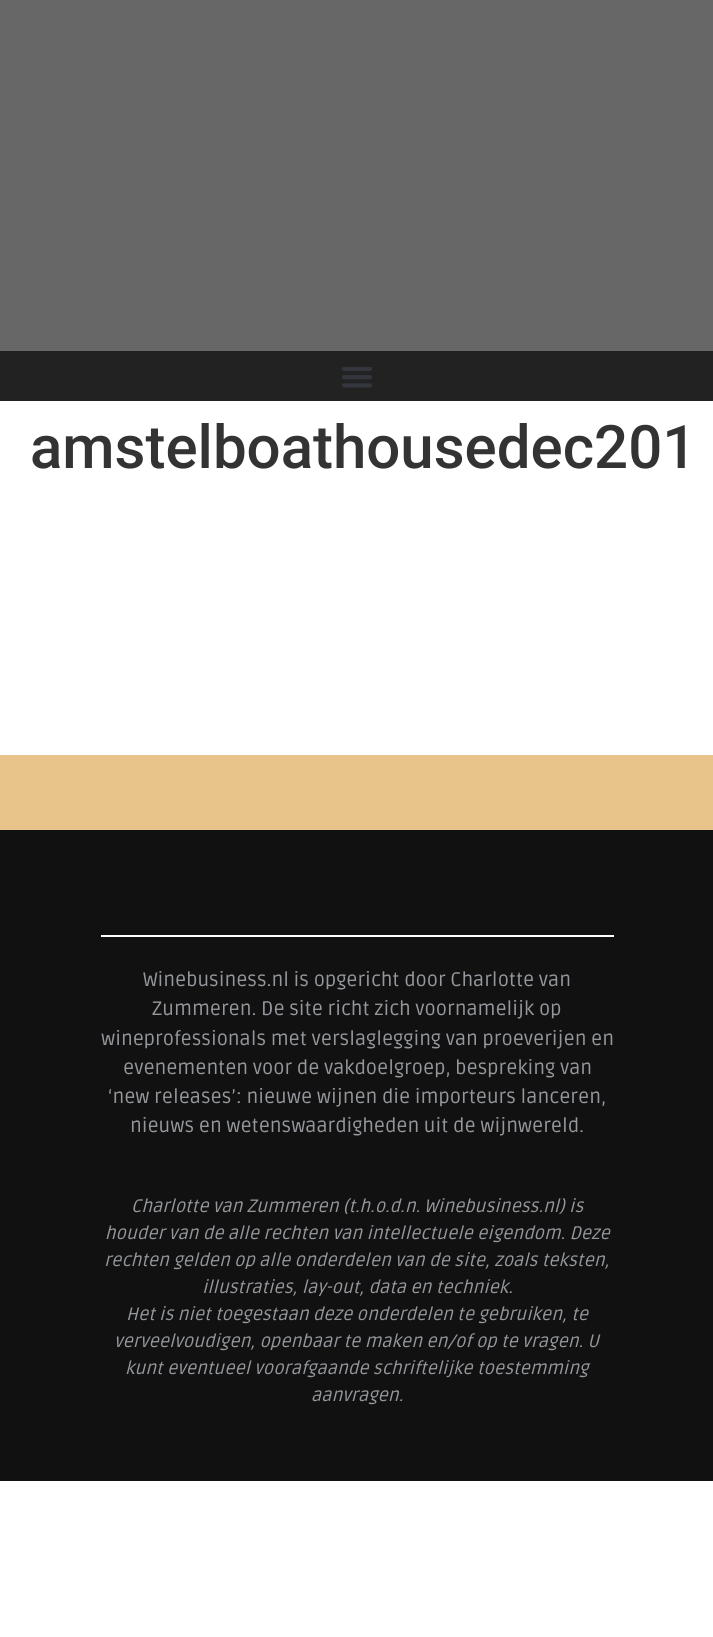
#include <cairo.h>
#include <math.h>
#include <stddef.h>


static void set_color(cairo_t *cr, unsigned color) {
    cairo_set_source_rgb(cr, (color >> 16) / 255.0, (color >> 8 & 255) / 255.0, (color & 255) / 255.0);
}

static void draw_text(cairo_t *cr, double x, double y, const char *s, const char *family, double size, int italic, int bold, unsigned color) {
    cairo_select_font_face(cr, family, italic ? CAIRO_FONT_SLANT_ITALIC : CAIRO_FONT_SLANT_NORMAL,
        bold ? CAIRO_FONT_WEIGHT_BOLD : CAIRO_FONT_WEIGHT_NORMAL);
    cairo_set_font_size(cr, size);
    set_color(cr, color);
    cairo_move_to(cr, x, y);
    cairo_show_text(cr, s);
}

static void fill_rect(cairo_t *cr, double x, double y, double w, double h, unsigned color) {
    set_color(cr, color);
    cairo_rectangle(cr, x, y, w, h);
    cairo_fill(cr);
}

static void draw_image(cairo_t *cr, const char *path, double x, double y, double w, double h) {
    cairo_surface_t *image = cairo_image_surface_create_from_png(path);
    cairo_save(cr);
    cairo_set_source_surface(cr, image, x, y);
    cairo_rectangle(cr, x, y, w, h);
    cairo_fill(cr);
    cairo_restore(cr);
    cairo_surface_destroy(image);
}

int main(void) {
    cairo_surface_t *surface = cairo_image_surface_create(CAIRO_FORMAT_RGB24, 713, 1637);
    cairo_t *cr = cairo_create(surface);
    cairo_font_options_t *options = cairo_font_options_create();
    cairo_font_options_set_hint_metrics(options, CAIRO_HINT_METRICS_OFF);
    cairo_font_options_set_hint_style(options, CAIRO_HINT_STYLE_NONE);
    cairo_set_font_options(cr, options);
    cairo_set_miter_limit(cr, 4);
    set_color(cr, 0xFFFFFF);
    cairo_paint(cr);
    fill_rect(cr, 0, 0, 713, 351, 0x676767);
    fill_rect(cr, 0, 351, 713, 50, 0x222222);
    draw_image(cr, "assets/img1.png", 342, 367, 30, 21);
    draw_text(cr, 30, 468, "amstelboathousedec201", "Roboto Medium", 60, 0, 0, 0x333333);
    fill_rect(cr, 0, 755, 713, 75, 0xE8C48B);
    fill_rect(cr, 0, 830, 713, 651, 0x111111);
    fill_rect(cr, 101, 935, 513, 2, 0xFFFFFF);
    draw_text(cr, 143, 986, "Winebusiness.nl is opgericht door Charlotte van", "Ruda", 19.5, 0, 0, 0x94979C);
    draw_text(cr, 152, 1015, "Zummeren. De site richt zich voornamelijk op", "Ruda", 19.5, 0, 0, 0x94979C);
    draw_text(cr, 101, 1045, "wineprofessionals met verslaglegging van proeverijen en", "Ruda", 19.5, 0, 0, 0x94979C);
    draw_text(cr, 123, 1074, "evenementen voor de vakdoelgroep, bespreking van", "Ruda", 19.5, 0, 0, 0x94979C);
    draw_text(cr, 108, 1103, "‘new releases’: nieuwe wijnen die importeurs lanceren,", "Ruda", 19.5, 0, 0, 0x94979C);
    draw_text(cr, 130, 1132, "nieuws en wetenswaardigheden uit de wijnwereld.", "Ruda", 19.5, 0, 0, 0x94979C);
    draw_text(cr, 131, 1212, "Charlotte van Zummeren (t.h.o.d.n. Winebusiness.nl) is", "Ruda", 18, 1, 0, 0x94979C);
    draw_text(cr, 105, 1239, "houder van de alle rechten van intellectuele eigendom. Deze", "Ruda", 18, 1, 0, 0x94979C);
    draw_text(cr, 104, 1266, "rechten gelden op alle onderdelen van de site, zoals teksten,", "Ruda", 18, 1, 0, 0x94979C);
    draw_text(cr, 202, 1293, "illustraties, lay-out, data en techniek.", "Ruda", 18, 1, 0, 0x94979C);
    draw_text(cr, 126, 1320, "Het is niet toegestaan deze onderdelen te gebruiken, te", "Ruda", 18, 1, 0, 0x94979C);
    draw_text(cr, 114, 1347, "verveelvoudigen, openbaar te maken en/of op te vragen. U", "Ruda", 18, 1, 0, 0x94979C);
    draw_text(cr, 125, 1374, "kunt eventueel voorafgaande schriftelijke toestemming", "Ruda", 18, 1, 0, 0x94979C);
    draw_text(cr, 311, 1401, "aanvragen.", "Ruda", 18, 1, 0, 0x94979C);
    cairo_surface_write_to_png(surface, "output.png");
    cairo_font_options_destroy(options);
    cairo_destroy(cr);
    cairo_surface_destroy(surface);
    return 0;
}
